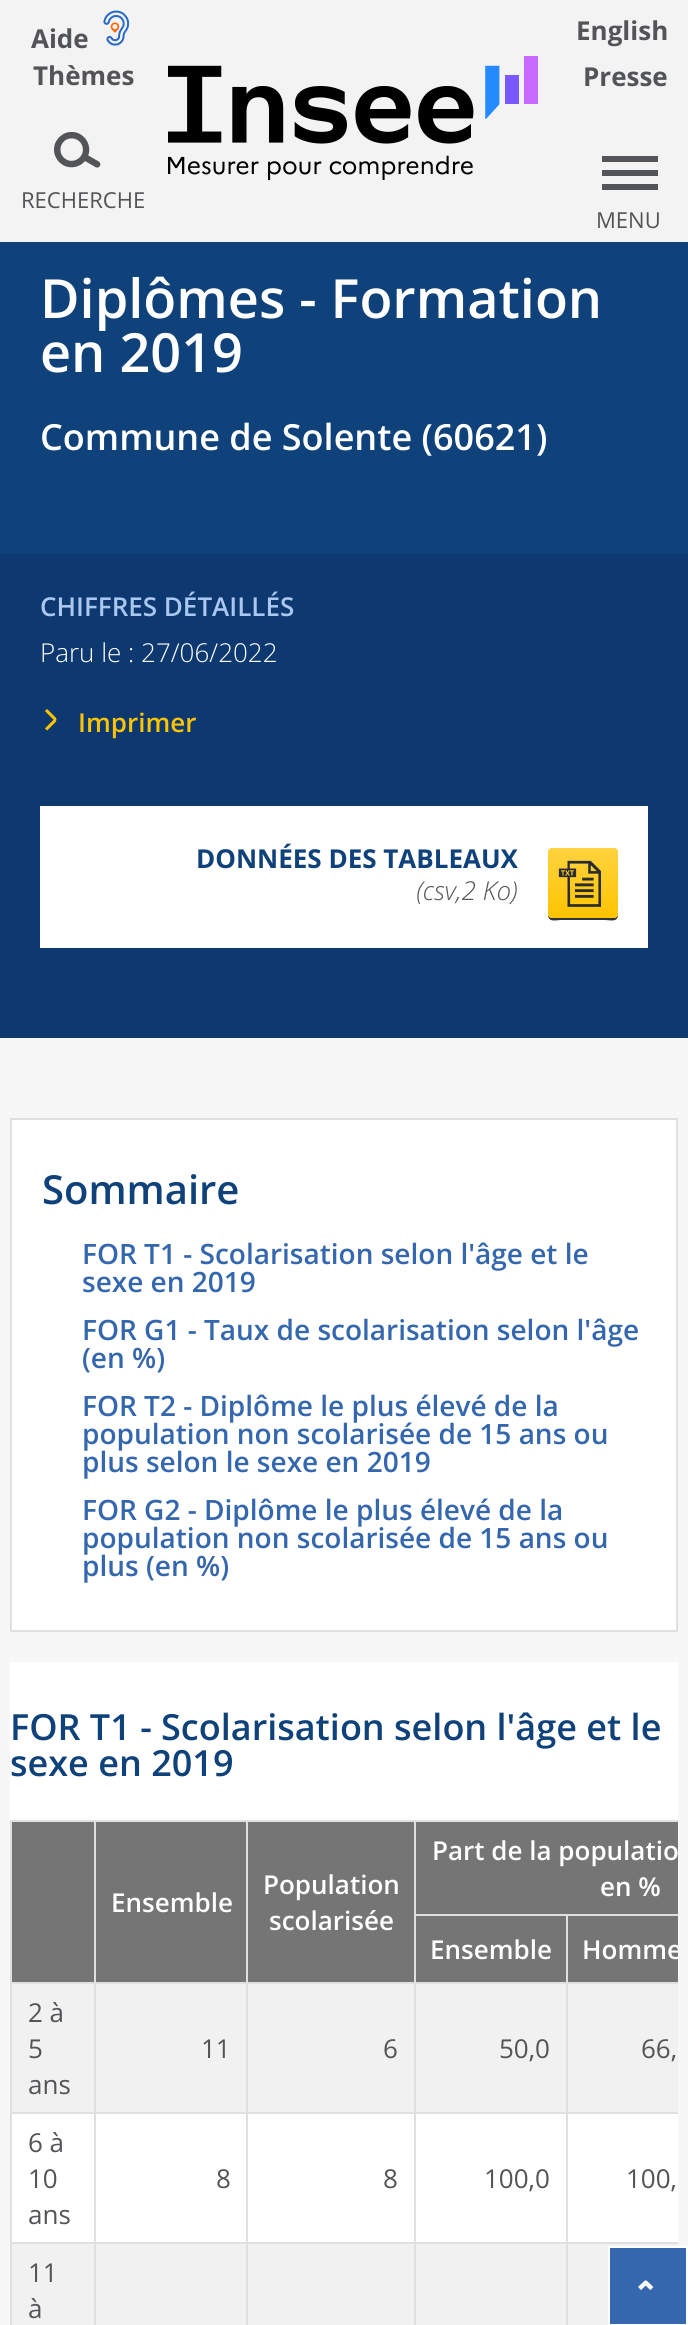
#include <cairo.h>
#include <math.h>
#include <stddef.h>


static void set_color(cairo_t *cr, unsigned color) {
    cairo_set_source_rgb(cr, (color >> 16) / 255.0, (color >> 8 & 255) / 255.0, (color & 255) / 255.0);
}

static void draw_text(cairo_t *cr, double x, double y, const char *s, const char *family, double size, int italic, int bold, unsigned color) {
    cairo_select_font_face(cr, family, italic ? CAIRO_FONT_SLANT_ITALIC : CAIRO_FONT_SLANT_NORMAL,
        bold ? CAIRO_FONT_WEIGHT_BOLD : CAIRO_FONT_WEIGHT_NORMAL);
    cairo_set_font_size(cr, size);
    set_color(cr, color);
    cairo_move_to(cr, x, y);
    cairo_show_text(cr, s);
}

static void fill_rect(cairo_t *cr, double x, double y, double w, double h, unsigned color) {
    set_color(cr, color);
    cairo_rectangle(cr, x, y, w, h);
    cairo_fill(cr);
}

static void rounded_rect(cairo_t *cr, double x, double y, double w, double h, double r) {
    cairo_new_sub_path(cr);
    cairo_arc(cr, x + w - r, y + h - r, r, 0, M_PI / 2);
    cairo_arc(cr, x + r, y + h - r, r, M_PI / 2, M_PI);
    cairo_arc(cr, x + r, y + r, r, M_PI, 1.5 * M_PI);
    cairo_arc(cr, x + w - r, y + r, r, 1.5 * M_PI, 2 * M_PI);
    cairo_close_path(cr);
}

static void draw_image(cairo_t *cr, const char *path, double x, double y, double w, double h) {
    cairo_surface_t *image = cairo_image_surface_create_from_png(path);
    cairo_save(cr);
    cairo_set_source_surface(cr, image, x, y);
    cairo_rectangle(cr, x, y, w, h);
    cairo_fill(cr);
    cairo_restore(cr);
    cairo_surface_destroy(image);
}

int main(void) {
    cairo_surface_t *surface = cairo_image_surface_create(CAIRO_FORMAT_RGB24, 688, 2325);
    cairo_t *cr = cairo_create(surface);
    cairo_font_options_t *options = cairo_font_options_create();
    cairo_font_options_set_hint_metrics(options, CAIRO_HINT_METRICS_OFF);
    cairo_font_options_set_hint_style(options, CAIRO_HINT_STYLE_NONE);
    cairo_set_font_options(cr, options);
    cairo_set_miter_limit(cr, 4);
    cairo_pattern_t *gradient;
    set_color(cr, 0xF7F7F7);
    cairo_paint(cr);
    fill_rect(cr, 0, 0, 688, 242, 0xF3F3F3);
    draw_text(cr, 31, 48, "Aide", "Open Sans", 26, 0, 1, 0x525457);
    draw_image(cr, "assets/img1.png", 103, 10, 27, 36);
    draw_text(cr, 576, 40, "English", "Open Sans", 26, 0, 1, 0x525457);
    draw_text(cr, 33, 85, "Thèmes", "Open Sans", 26, 0, 1, 0x525457);
    draw_image(cr, "assets/img2.png", 168, 56, 370, 124);
    draw_text(cr, 583, 86, "Presse", "Open Sans", 26, 0, 1, 0x525457);
    draw_image(cr, "assets/img3.png", 54, 132, 47, 36);
    draw_text(cr, 21, 208, "RECHERCHE", "Open Sans", 22, 0, 0, 0x525457);
    fill_rect(cr, 602, 184, 56, 6, 0x525457);
    fill_rect(cr, 602, 170, 56, 6, 0x525457);
    fill_rect(cr, 602, 156, 56, 6, 0x525457);
    draw_text(cr, 596, 228, "MENU", "Open Sans", 22, 0, 0, 0x525457);
    fill_rect(cr, 0, 242, 688, 312, 0x0F417A);
    draw_text(cr, 40, 318, "Diplômes - Formation", "Open Sans SemiBold", 54, 0, 0, 0xFFFFFF);
    draw_text(cr, 40, 372, "en 2019", "Open Sans SemiBold", 54, 0, 0, 0xFFFFFF);
    draw_text(cr, 40, 450, "Commune de Solente (60621)", "Open Sans SemiBold", 36, 0, 0, 0xFFFFFF);
    fill_rect(cr, 0, 554, 688, 484, 0x0D3970);
    draw_text(cr, 40, 616, "CHIFFRES DÉTAILLÉS", "Open Sans SemiBold", 26, 0, 0, 0xAAC7F0);
    draw_text(cr, 40, 662, "Paru le : 27/06/2022", "Open Sans Light", 26, 0, 0, 0xFFFFFF);
    draw_image(cr, "assets/img4.png", 45, 709, 12, 22);
    draw_text(cr, 78, 732, "Imprimer", "Open Sans SemiBold", 26, 0, 0, 0xFFC400);
    fill_rect(cr, 40, 806, 608, 142, 0xFFFFFF);
    draw_text(cr, 196, 868, "DONNÉES DES TABLEAUX", "Open Sans", 26, 0, 1, 0x0F417A);
    draw_text(cr, 416, 900, "(csv,2 Ko)", "Open Sans Light", 26, 1, 0, 0x525457);
    set_color(cr, 0x333333);
    cairo_new_path(cr);
    cairo_move_to(cr, 548, 914);
    cairo_curve_to(cr, 548, 923, 555, 920, 562, 920);
    cairo_line_to(cr, 604, 920);
    cairo_curve_to(cr, 611, 920, 618, 923, 618, 914);
    cairo_curve_to(cr, 618, 916, 616, 918, 614, 918);
    cairo_line_to(cr, 552, 918);
    cairo_curve_to(cr, 550, 918, 548, 916, 548, 914);
    cairo_close_path(cr);
    cairo_fill(cr);
    set_color(cr, 0xFFC400);
    rounded_rect(cr, 548, 848, 70, 70, 4);
    cairo_fill(cr);
    gradient = cairo_pattern_create_linear(583, 918, 583, 848);
    cairo_pattern_add_color_stop_rgba(gradient, 0, 1, 1, 1, 0);
    cairo_pattern_add_color_stop_rgba(gradient, 1, 1, 1, 1, 0.25);
    cairo_set_source(cr, gradient);
    cairo_pattern_destroy(gradient);
    rounded_rect(cr, 548, 848, 70, 70, 4);
    cairo_fill(cr);
    draw_image(cr, "assets/img5.png", 558, 860, 43, 47);
    set_color(cr, 0xFFFFFF);
    cairo_rectangle(cr, 11, 1119, 666, 512);
    cairo_fill_preserve(cr);
    set_color(cr, 0xE0E0E0);
    cairo_stroke(cr);
    draw_text(cr, 42, 1204, "Sommaire", "Open Sans SemiBold", 40, 0, 0, 0x0F417A);
    draw_text(cr, 82, 1264, "FOR T1 - Scolarisation selon l'âge et le", "Open Sans SemiBold", 28, 0, 0, 0x3467AE);
    draw_text(cr, 82, 1292, "sexe en 2019", "Open Sans SemiBold", 28, 0, 0, 0x3467AE);
    draw_text(cr, 82, 1340, "FOR G1 - Taux de scolarisation selon l'âge", "Open Sans SemiBold", 28, 0, 0, 0x3467AE);
    draw_text(cr, 82, 1368, "(en %)", "Open Sans SemiBold", 28, 0, 0, 0x3467AE);
    draw_text(cr, 82, 1416, "FOR T2 - Diplôme le plus élevé de la", "Open Sans SemiBold", 28, 0, 0, 0x3467AE);
    draw_text(cr, 82, 1444, "population non scolarisée de 15 ans ou", "Open Sans SemiBold", 28, 0, 0, 0x3467AE);
    draw_text(cr, 82, 1472, "plus selon le sexe en 2019", "Open Sans SemiBold", 28, 0, 0, 0x3467AE);
    draw_text(cr, 82, 1520, "FOR G2 - Diplôme le plus élevé de la", "Open Sans SemiBold", 28, 0, 0, 0x3467AE);
    draw_text(cr, 82, 1548, "population non scolarisée de 15 ans ou", "Open Sans SemiBold", 28, 0, 0, 0x3467AE);
    draw_text(cr, 82, 1576, "plus (en %)", "Open Sans SemiBold", 28, 0, 0, 0x3467AE);
    fill_rect(cr, 10, 1662, 668, 580, 0xFFFFFF);
    draw_text(cr, 10, 1740, "FOR T1 - Scolarisation selon l'âge et le", "Open Sans SemiBold", 36, 0, 0, 0x0F417A);
    draw_text(cr, 10, 1776, "sexe en 2019", "Open Sans SemiBold", 36, 0, 0, 0x0F417A);
    cairo_save(cr);
    cairo_rectangle(cr, 10, 1820, 668, 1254);
    cairo_clip(cr);
    cairo_rectangle(cr, 11, 1821, 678, 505);
    set_color(cr, 0xE0E0E0);
    cairo_stroke(cr);
    cairo_restore(cr);
    fill_rect(cr, 12, 1822, 82, 160, 0x757575);
    fill_rect(cr, 94, 1822, 2, 503, 0xE0E0E0);
    fill_rect(cr, 246, 1822, 2, 503, 0xE0E0E0);
    fill_rect(cr, 414, 1822, 2, 503, 0xE0E0E0);
    fill_rect(cr, 566, 1916, 2, 409, 0xE0E0E0);
    fill_rect(cr, 12, 1982, 666, 2, 0xE0E0E0);
    fill_rect(cr, 96, 1822, 150, 160, 0x757575);
    draw_text(cr, 111, 1912, "Ensemble", "Open Sans SemiBold", 26, 0, 0, 0xFFFFFF);
    fill_rect(cr, 248, 1822, 166, 160, 0x757575);
    draw_text(cr, 263, 1894, "Population", "Open Sans SemiBold", 26, 0, 0, 0xFFFFFF);
    draw_text(cr, 269, 1930, "scolarisée", "Open Sans SemiBold", 26, 0, 0, 0xFFFFFF);
    fill_rect(cr, 416, 1822, 262, 92, 0x757575);
    fill_rect(cr, 416, 1914, 262, 2, 0xE0E0E0);
    draw_text(cr, 432, 1860, "Part de la populatio", "Open Sans SemiBold", 26, 0, 0, 0xFFFFFF);
    draw_text(cr, 600, 1896, "en %", "Open Sans SemiBold", 26, 0, 0, 0xFFFFFF);
    fill_rect(cr, 416, 1916, 150, 66, 0x757575);
    draw_text(cr, 430, 1959, "Ensemble", "Open Sans SemiBold", 26, 0, 0, 0xFFFFFF);
    fill_rect(cr, 568, 1916, 110, 66, 0x757575);
    cairo_save(cr);
    cairo_rectangle(cr, 568, 1916, 110, 66);
    cairo_clip(cr);
    draw_text(cr, 582, 1959, "Homme", "Open Sans SemiBold", 26, 0, 0, 0xFFFFFF);
    cairo_restore(cr);
    fill_rect(cr, 12, 1984, 82, 128, 0xF1F1F1);
    fill_rect(cr, 12, 2112, 84, 2, 0xE0E0E0);
    draw_text(cr, 28, 2022, "2 à", "Open Sans", 26, 0, 0, 0x525457);
    draw_text(cr, 28, 2058, "5", "Open Sans", 26, 0, 0, 0x525457);
    draw_text(cr, 28, 2094, "ans", "Open Sans", 26, 0, 0, 0x525457);
    fill_rect(cr, 96, 1984, 150, 128, 0xF1F1F1);
    fill_rect(cr, 96, 2112, 152, 2, 0xE0E0E0);
    draw_text(cr, 201, 2058, "11", "Open Sans", 26, 0, 0, 0x525457);
    fill_rect(cr, 248, 1984, 166, 128, 0xF1F1F1);
    fill_rect(cr, 248, 2112, 168, 2, 0xE0E0E0);
    draw_text(cr, 383, 2058, "6", "Open Sans", 26, 0, 0, 0x525457);
    fill_rect(cr, 416, 1984, 150, 128, 0xF1F1F1);
    fill_rect(cr, 416, 2112, 262, 2, 0xE0E0E0);
    draw_text(cr, 499, 2058, "50,0", "Open Sans", 26, 0, 0, 0x525457);
    fill_rect(cr, 568, 1984, 110, 128, 0xF1F1F1);
    draw_text(cr, 641, 2058, "66,", "Open Sans", 26, 0, 0, 0x525457);
    fill_rect(cr, 12, 2242, 666, 2, 0xE0E0E0);
    draw_text(cr, 28, 2152, "6 à", "Open Sans", 26, 0, 0, 0x525457);
    draw_text(cr, 28, 2188, "10", "Open Sans", 26, 0, 0, 0x525457);
    draw_text(cr, 28, 2224, "ans", "Open Sans", 26, 0, 0, 0x525457);
    draw_text(cr, 216, 2188, "8", "Open Sans", 26, 0, 0, 0x525457);
    draw_text(cr, 383, 2188, "8", "Open Sans", 26, 0, 0, 0x525457);
    draw_text(cr, 484, 2188, "100,0", "Open Sans", 26, 0, 0, 0x525457);
    draw_text(cr, 626, 2188, "100,", "Open Sans", 26, 0, 0, 0x525457);
    fill_rect(cr, 12, 2244, 82, 81, 0xF1F1F1);
    draw_text(cr, 28, 2282, "11", "Open Sans", 26, 0, 0, 0x525457);
    draw_text(cr, 28, 2318, "à", "Open Sans", 26, 0, 0, 0x525457);
    fill_rect(cr, 96, 2244, 150, 81, 0xF1F1F1);
    fill_rect(cr, 248, 2244, 166, 81, 0xF1F1F1);
    fill_rect(cr, 416, 2244, 150, 81, 0xF1F1F1);
    fill_rect(cr, 568, 2244, 110, 81, 0xF1F1F1);
    set_color(cr, 0x3467AE);
    cairo_rectangle(cr, 609, 2247, 78, 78);
    cairo_fill_preserve(cr);
    set_color(cr, 0xFFFFFF);
    cairo_stroke(cr);
    draw_image(cr, "assets/img6.png", 638, 2280, 16, 10);
    cairo_surface_write_to_png(surface, "output.png");
    cairo_font_options_destroy(options);
    cairo_destroy(cr);
    cairo_surface_destroy(surface);
    return 0;
}
